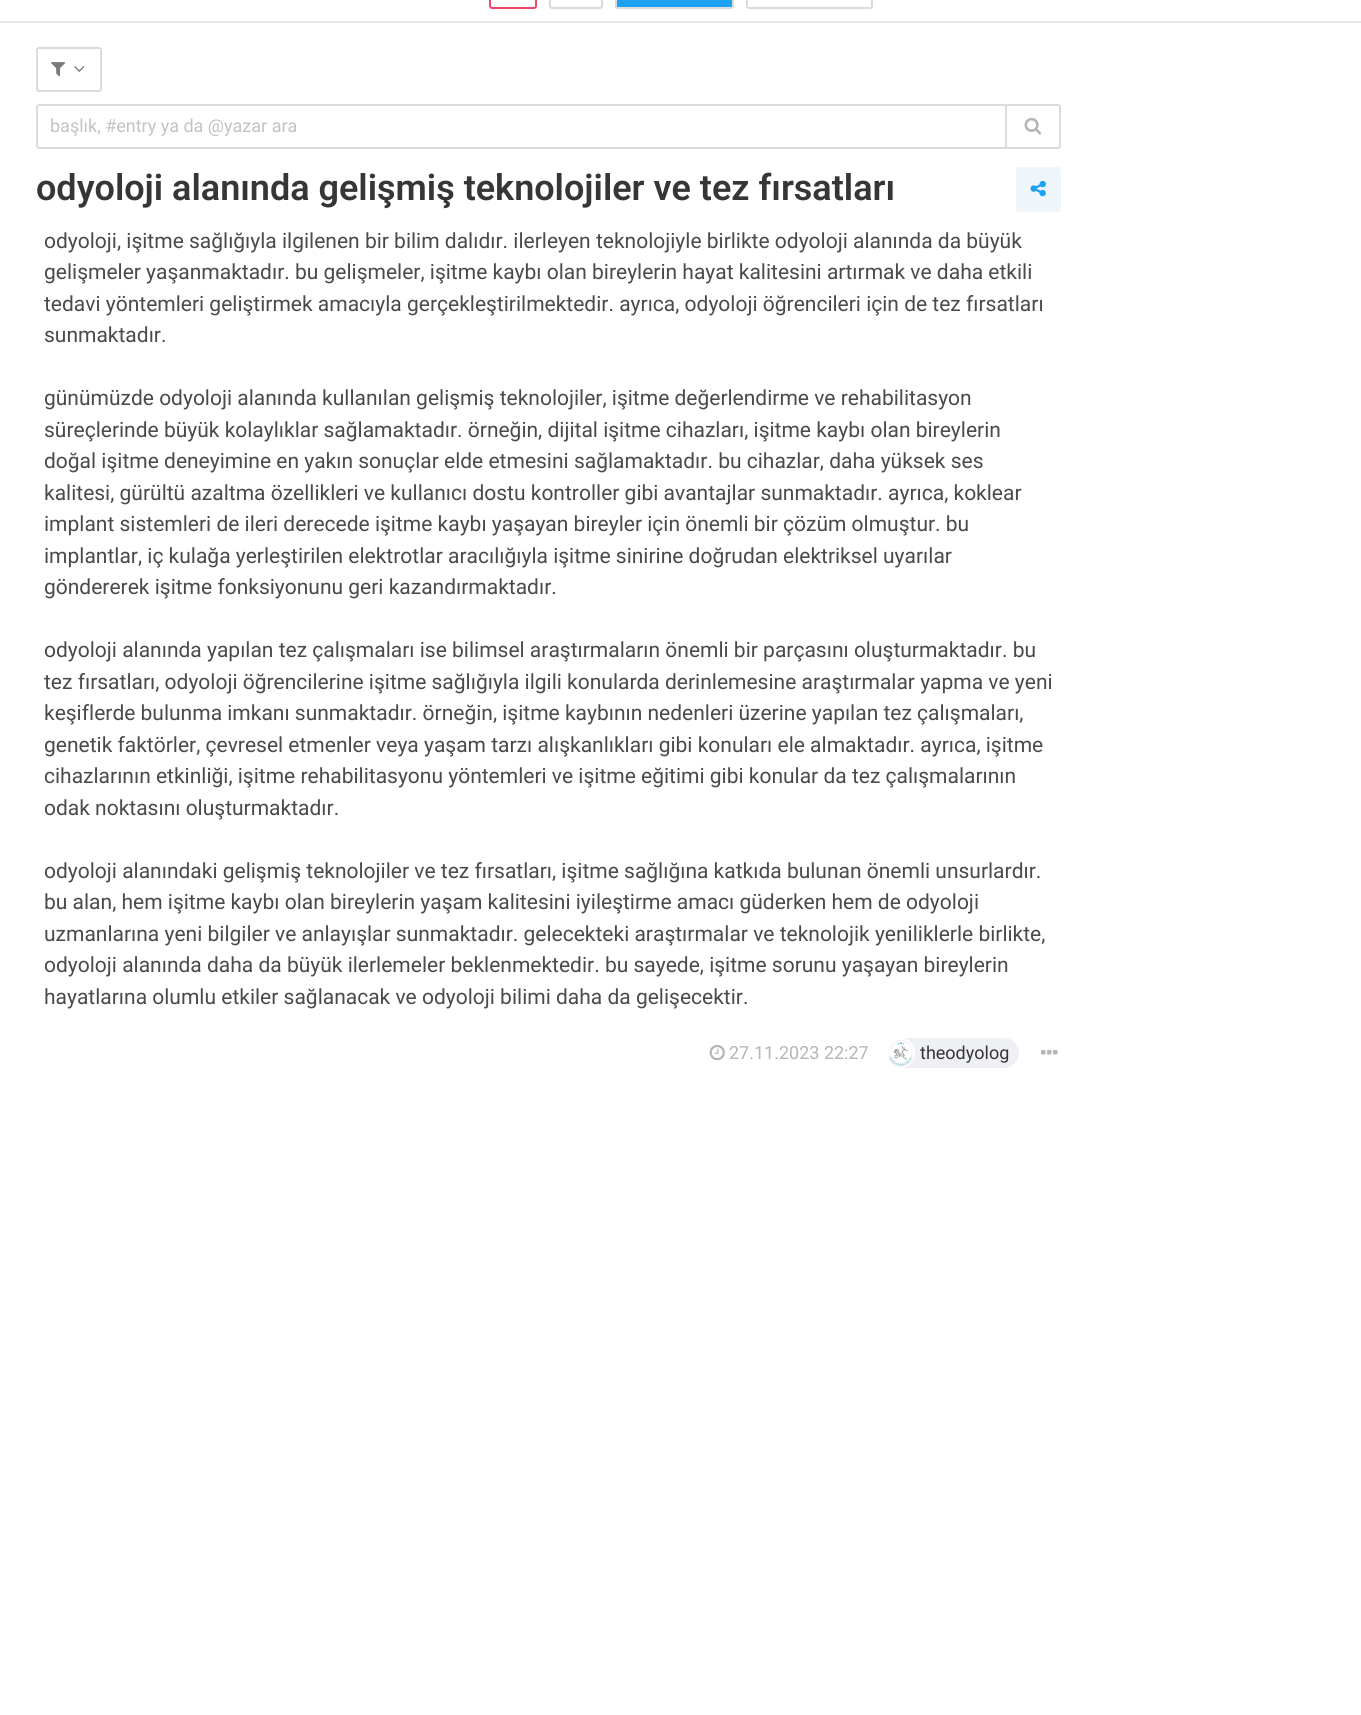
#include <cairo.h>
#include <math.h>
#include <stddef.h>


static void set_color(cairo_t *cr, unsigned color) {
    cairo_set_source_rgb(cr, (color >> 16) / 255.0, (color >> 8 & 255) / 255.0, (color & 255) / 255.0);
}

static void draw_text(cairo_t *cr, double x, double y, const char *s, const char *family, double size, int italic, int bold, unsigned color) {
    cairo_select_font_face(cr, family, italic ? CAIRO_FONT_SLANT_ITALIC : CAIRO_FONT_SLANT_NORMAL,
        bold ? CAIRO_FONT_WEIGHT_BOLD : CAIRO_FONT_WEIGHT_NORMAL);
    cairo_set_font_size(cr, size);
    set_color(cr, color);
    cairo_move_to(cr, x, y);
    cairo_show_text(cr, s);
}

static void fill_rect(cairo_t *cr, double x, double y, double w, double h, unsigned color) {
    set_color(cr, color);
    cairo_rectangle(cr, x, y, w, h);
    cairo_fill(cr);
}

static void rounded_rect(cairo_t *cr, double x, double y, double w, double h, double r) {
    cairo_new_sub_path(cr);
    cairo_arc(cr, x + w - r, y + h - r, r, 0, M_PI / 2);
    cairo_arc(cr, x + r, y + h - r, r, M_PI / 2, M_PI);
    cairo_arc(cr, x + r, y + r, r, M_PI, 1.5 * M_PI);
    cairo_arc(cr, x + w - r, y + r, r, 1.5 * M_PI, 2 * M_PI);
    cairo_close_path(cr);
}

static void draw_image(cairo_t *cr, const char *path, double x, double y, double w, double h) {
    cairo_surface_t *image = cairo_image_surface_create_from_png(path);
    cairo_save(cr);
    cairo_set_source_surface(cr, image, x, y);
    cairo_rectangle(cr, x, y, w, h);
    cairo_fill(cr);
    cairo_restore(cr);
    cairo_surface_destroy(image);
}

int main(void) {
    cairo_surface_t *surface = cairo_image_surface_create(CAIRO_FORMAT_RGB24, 1361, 1715);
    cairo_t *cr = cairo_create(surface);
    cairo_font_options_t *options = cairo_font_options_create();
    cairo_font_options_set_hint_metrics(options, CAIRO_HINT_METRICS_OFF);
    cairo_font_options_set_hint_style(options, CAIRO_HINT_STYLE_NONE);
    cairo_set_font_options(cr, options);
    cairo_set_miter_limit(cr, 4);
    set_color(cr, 0xFFFFFF);
    cairo_paint(cr);
    fill_rect(cr, 0, 21, 1361, 2, 0xE7E7E7);
    rounded_rect(cr, 490, -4, 46, 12, 2);
    set_color(cr, 0xF14668);
    cairo_stroke(cr);
    rounded_rect(cr, 550, -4, 52, 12, 2);
    set_color(cr, 0xDBDBDB);
    cairo_stroke(cr);
    set_color(cr, 0x1DA1F2);
    rounded_rect(cr, 616, -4, 117, 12, 2);
    cairo_fill_preserve(cr);
    set_color(cr, 0xDBDBDB);
    cairo_stroke(cr);
    rounded_rect(cr, 747, -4, 125, 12, 2);
    cairo_stroke(cr);
    rounded_rect(cr, 37, 48, 64, 43, 2);
    cairo_stroke(cr);
    draw_image(cr, "assets/img1.png", 51, 62, 15, 15);
    draw_image(cr, "assets/img2.png", 74, 66, 11, 6);
    cairo_new_path(cr);
    cairo_move_to(cr, 39, 105);
    cairo_line_to(cr, 1006, 105);
    cairo_line_to(cr, 1006, 148);
    cairo_line_to(cr, 39, 148);
    cairo_curve_to(cr, 38, 148, 37, 147, 37, 146);
    cairo_line_to(cr, 37, 107);
    cairo_curve_to(cr, 37, 106, 38, 105, 39, 105);
    cairo_close_path(cr);
    cairo_stroke(cr);
    draw_text(cr, 50, 132, "başlık, #entry ya da @yazar ara", "Roboto", 18, 0, 0, 0xC3C3C3);
    set_color(cr, 0xFFFFFF);
    rounded_rect(cr, 1006, 105, 54, 43, 2);
    cairo_fill_preserve(cr);
    set_color(cr, 0xDBDBDB);
    cairo_stroke(cr);
    draw_image(cr, "assets/img3.png", 1024, 117, 18, 18);
    draw_text(cr, 36, 200, "odyoloji alanında gelişmiş teknolojiler ve tez fırsatları", "Roboto SemiBold", 36, 0, 0, 0x363636);
    set_color(cr, 0xEEF6FC);
    rounded_rect(cr, 1016, 167, 45, 45, 3);
    cairo_fill(cr);
    draw_image(cr, "assets/img4.png", 1030, 180, 16, 17);
    draw_text(cr, 44, 248, "odyoloji, işitme sağlığıyla ilgilenen bir bilim dalıdır. ilerleyen teknolojiyle birlikte odyoloji alanında da büyük", "Roboto", 21, 0, 0, 0x4A4A4A);
    draw_text(cr, 44, 279, "gelişmeler yaşanmaktadır. bu gelişmeler, işitme kaybı olan bireylerin hayat kalitesini artırmak ve daha etkili", "Roboto", 21, 0, 0, 0x4A4A4A);
    draw_text(cr, 44, 311, "tedavi yöntemleri geliştirmek amacıyla gerçekleştirilmektedir. ayrıca, odyoloji öğrencileri için de tez fırsatları", "Roboto", 21, 0, 0, 0x4A4A4A);
    draw_text(cr, 44, 342, "sunmaktadır.", "Roboto", 21, 0, 0, 0x4A4A4A);
    draw_text(cr, 44, 405, "günümüzde odyoloji alanında kullanılan gelişmiş teknolojiler, işitme değerlendirme ve rehabilitasyon", "Roboto", 21, 0, 0, 0x4A4A4A);
    draw_text(cr, 44, 437, "süreçlerinde büyük kolaylıklar sağlamaktadır. örneğin, dijital işitme cihazları, işitme kaybı olan bireylerin", "Roboto", 21, 0, 0, 0x4A4A4A);
    draw_text(cr, 44, 468, "doğal işitme deneyimine en yakın sonuçlar elde etmesini sağlamaktadır. bu cihazlar, daha yüksek ses", "Roboto", 21, 0, 0, 0x4A4A4A);
    draw_text(cr, 44, 500, "kalitesi, gürültü azaltma özellikleri ve kullanıcı dostu kontroller gibi avantajlar sunmaktadır. ayrıca, koklear", "Roboto", 21, 0, 0, 0x4A4A4A);
    draw_text(cr, 44, 531, "implant sistemleri de ileri derecede işitme kaybı yaşayan bireyler için önemli bir çözüm olmuştur. bu", "Roboto", 21, 0, 0, 0x4A4A4A);
    draw_text(cr, 44, 563, "implantlar, iç kulağa yerleştirilen elektrotlar aracılığıyla işitme sinirine doğrudan elektriksel uyarılar", "Roboto", 21, 0, 0, 0x4A4A4A);
    draw_text(cr, 44, 594, "göndererek işitme fonksiyonunu geri kazandırmaktadır.", "Roboto", 21, 0, 0, 0x4A4A4A);
    draw_text(cr, 44, 657, "odyoloji alanında yapılan tez çalışmaları ise bilimsel araştırmaların önemli bir parçasını oluşturmaktadır. bu", "Roboto", 21, 0, 0, 0x4A4A4A);
    draw_text(cr, 44, 689, "tez fırsatları, odyoloji öğrencilerine işitme sağlığıyla ilgili konularda derinlemesine araştırmalar yapma ve yeni", "Roboto", 21, 0, 0, 0x4A4A4A);
    draw_text(cr, 44, 720, "keşiflerde bulunma imkanı sunmaktadır. örneğin, işitme kaybının nedenleri üzerine yapılan tez çalışmaları,", "Roboto", 21, 0, 0, 0x4A4A4A);
    draw_text(cr, 44, 752, "genetik faktörler, çevresel etmenler veya yaşam tarzı alışkanlıkları gibi konuları ele almaktadır. ayrıca, işitme", "Roboto", 21, 0, 0, 0x4A4A4A);
    draw_text(cr, 44, 783, "cihazlarının etkinliği, işitme rehabilitasyonu yöntemleri ve işitme eğitimi gibi konular da tez çalışmalarının", "Roboto", 21, 0, 0, 0x4A4A4A);
    draw_text(cr, 44, 815, "odak noktasını oluşturmaktadır.", "Roboto", 21, 0, 0, 0x4A4A4A);
    draw_text(cr, 44, 878, "odyoloji alanındaki gelişmiş teknolojiler ve tez fırsatları, işitme sağlığına katkıda bulunan önemli unsurlardır.", "Roboto", 21, 0, 0, 0x4A4A4A);
    draw_text(cr, 44, 909, "bu alan, hem işitme kaybı olan bireylerin yaşam kalitesini iyileştirme amacı güderken hem de odyoloji", "Roboto", 21, 0, 0, 0x4A4A4A);
    draw_text(cr, 44, 941, "uzmanlarına yeni bilgiler ve anlayışlar sunmaktadır. gelecekteki araştırmalar ve teknolojik yeniliklerle birlikte,", "Roboto", 21, 0, 0, 0x4A4A4A);
    draw_text(cr, 44, 972, "odyoloji alanında daha da büyük ilerlemeler beklenmektedir. bu sayede, işitme sorunu yaşayan bireylerin", "Roboto", 21, 0, 0, 0x4A4A4A);
    draw_text(cr, 44, 1004, "hayatlarına olumlu etkiler sağlanacak ve odyoloji bilimi daha da gelişecektir.", "Roboto", 21, 0, 0, 0x4A4A4A);
    draw_image(cr, "assets/img5.png", 709, 1044, 16, 17);
    draw_text(cr, 729, 1059, "27.11.2023 22:27", "Roboto", 18, 0, 0, 0xB5B5B5);
    set_color(cr, 0xEEF0F3);
    rounded_rect(cr, 887, 1038, 132, 30, 15);
    cairo_fill(cr);
    draw_image(cr, "assets/img6.png", 887, 1038, 28, 30);
    draw_text(cr, 920, 1059, "theodyolog", "Roboto", 18, 0, 0, 0x363636);
    draw_image(cr, "assets/img7.png", 1041, 1050, 17, 5);
    cairo_surface_write_to_png(surface, "output.png");
    cairo_font_options_destroy(options);
    cairo_destroy(cr);
    cairo_surface_destroy(surface);
    return 0;
}
